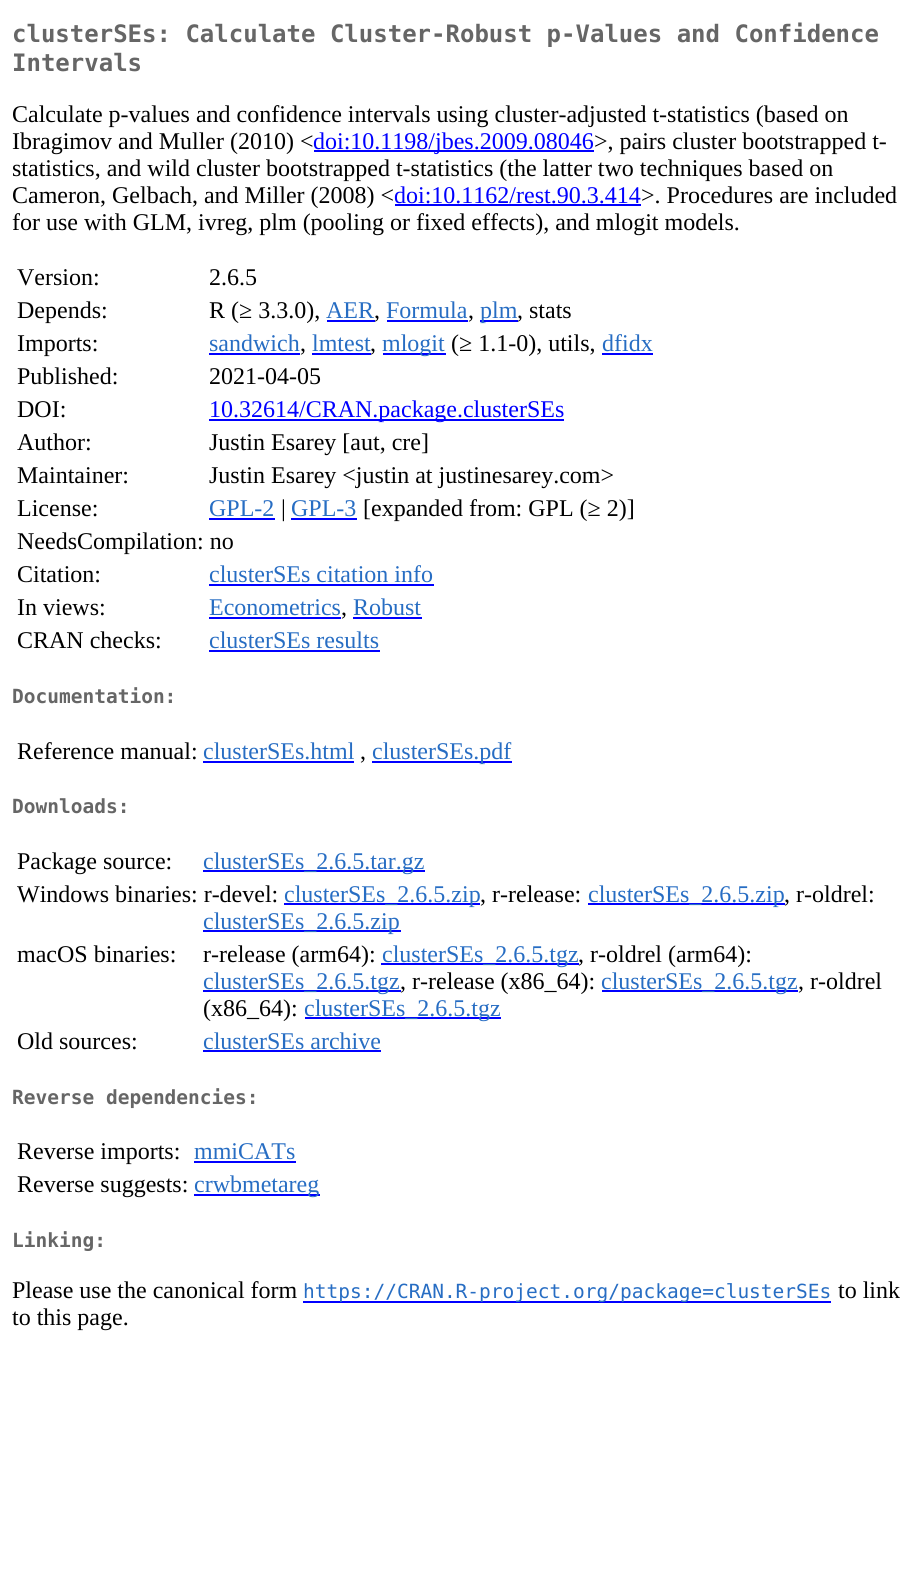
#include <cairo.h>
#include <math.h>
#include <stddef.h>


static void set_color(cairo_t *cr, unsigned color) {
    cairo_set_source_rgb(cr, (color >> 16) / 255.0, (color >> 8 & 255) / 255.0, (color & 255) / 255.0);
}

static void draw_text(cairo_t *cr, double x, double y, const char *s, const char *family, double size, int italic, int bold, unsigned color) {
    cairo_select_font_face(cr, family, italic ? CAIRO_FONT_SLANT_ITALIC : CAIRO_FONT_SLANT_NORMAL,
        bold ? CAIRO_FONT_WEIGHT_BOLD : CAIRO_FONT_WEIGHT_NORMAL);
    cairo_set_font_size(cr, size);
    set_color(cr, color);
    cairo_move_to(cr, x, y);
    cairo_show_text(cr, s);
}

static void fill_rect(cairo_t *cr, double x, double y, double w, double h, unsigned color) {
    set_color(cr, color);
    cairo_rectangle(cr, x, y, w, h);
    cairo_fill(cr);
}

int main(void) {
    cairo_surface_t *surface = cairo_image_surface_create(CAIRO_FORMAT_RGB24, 924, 1581);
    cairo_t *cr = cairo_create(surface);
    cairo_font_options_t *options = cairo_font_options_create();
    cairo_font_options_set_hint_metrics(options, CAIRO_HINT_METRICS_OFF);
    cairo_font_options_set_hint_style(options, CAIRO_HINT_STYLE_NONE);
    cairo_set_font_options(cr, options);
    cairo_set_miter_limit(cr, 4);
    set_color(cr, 0xFFFFFF);
    cairo_paint(cr);
    draw_text(cr, 12, 42, "clusterSEs: Calculate Cluster-Robust p-Values and Confidence", "DejaVu Sans Mono", 24, 0, 1, 0x666666);
    draw_text(cr, 12, 71, "Intervals", "DejaVu Sans Mono", 24, 0, 1, 0x666666);
    draw_text(cr, 12, 122, "Calculate p-values and confidence intervals using cluster-adjusted t-statistics (based on", "Liberation Serif", 24, 0, 0, 0x000000);
    draw_text(cr, 12, 149, "Ibragimov and Muller (2010) <", "Liberation Serif", 24, 0, 0, 0x000000);
    fill_rect(cr, 314, 150, 280, 2, 0x0000FF);
    draw_text(cr, 313, 149, "doi:10.1198/jbes.2009.08046", "Liberation Serif", 24, 0, 0, 0x0000FF);
    draw_text(cr, 594, 149, ">, pairs cluster bootstrapped t-", "Liberation Serif", 24, 0, 0, 0x000000);
    draw_text(cr, 12, 176, "statistics, and wild cluster bootstrapped t-statistics (the latter two techniques based on", "Liberation Serif", 24, 0, 0, 0x000000);
    draw_text(cr, 12, 203, "Cameron, Gelbach, and Miller (2008) <", "Liberation Serif", 24, 0, 0, 0x000000);
    draw_text(cr, 394, 203, "doi:10.1162/rest.90.3.414", "Liberation Serif", 24, 0, 0, 0x0000FF);
    fill_rect(cr, 395, 204, 246, 2, 0x0000FF);
    draw_text(cr, 641, 203, ">. Procedures are included", "Liberation Serif", 24, 0, 0, 0x000000);
    draw_text(cr, 12, 230, "for use with GLM, ivreg, plm (pooling or fixed effects), and mlogit models.", "Liberation Serif", 24, 0, 0, 0x000000);
    draw_text(cr, 17, 285, "Version:", "Liberation Serif", 24, 0, 0, 0x000000);
    draw_text(cr, 209, 285, "2.6.5", "Liberation Serif", 24, 0, 0, 0x000000);
    draw_text(cr, 17, 318, "Depends:", "Liberation Serif", 24, 0, 0, 0x000000);
    draw_text(cr, 209, 318, "R (≥ 3.3.0),", "Liberation Serif", 24, 0, 0, 0x000000);
    draw_text(cr, 326, 318, "AER", "Liberation Serif", 24, 0, 0, 0x276DC3);
    fill_rect(cr, 327, 320, 48, 2, 0x0000FF);
    draw_text(cr, 374, 318, ",", "Liberation Serif", 24, 0, 0, 0x000000);
    draw_text(cr, 386, 318, "Formula", "Liberation Serif", 24, 0, 0, 0x276DC3);
    fill_rect(cr, 387, 320, 81, 2, 0x0000FF);
    draw_text(cr, 468, 318, ",", "Liberation Serif", 24, 0, 0, 0x000000);
    fill_rect(cr, 480, 320, 38, 2, 0x0000FF);
    draw_text(cr, 480, 318, "plm", "Liberation Serif", 24, 0, 0, 0x276DC3);
    draw_text(cr, 517, 318, ", stats", "Liberation Serif", 24, 0, 0, 0x000000);
    draw_text(cr, 17, 351, "Imports:", "Liberation Serif", 24, 0, 0, 0x000000);
    draw_text(cr, 209, 351, "sandwich", "Liberation Serif", 24, 0, 0, 0x276DC3);
    fill_rect(cr, 209, 353, 91, 2, 0x0000FF);
    draw_text(cr, 300, 351, ",", "Liberation Serif", 24, 0, 0, 0x000000);
    draw_text(cr, 312, 351, "lmtest", "Liberation Serif", 24, 0, 0, 0x276DC3);
    fill_rect(cr, 312, 353, 59, 2, 0x0000FF);
    draw_text(cr, 370, 351, ",", "Liberation Serif", 24, 0, 0, 0x000000);
    fill_rect(cr, 383, 353, 63, 2, 0x0000FF);
    draw_text(cr, 382, 351, "mlogit", "Liberation Serif", 24, 0, 0, 0x276DC3);
    draw_text(cr, 451, 351, "(≥ 1.1-0), utils,", "Liberation Serif", 24, 0, 0, 0x000000);
    draw_text(cr, 602, 351, "dfidx", "Liberation Serif", 24, 0, 0, 0x276DC3);
    fill_rect(cr, 602, 353, 51, 2, 0x0000FF);
    draw_text(cr, 17, 384, "Published:", "Liberation Serif", 24, 0, 0, 0x000000);
    draw_text(cr, 209, 384, "2021-04-05", "Liberation Serif", 24, 0, 0, 0x000000);
    draw_text(cr, 17, 417, "DOI:", "Liberation Serif", 24, 0, 0, 0x000000);
    fill_rect(cr, 209, 419, 355, 2, 0x0000FF);
    draw_text(cr, 209, 417, "10.32614/CRAN.package.clusterSEs", "Liberation Serif", 24, 0, 0, 0x0000FF);
    draw_text(cr, 17, 450, "Author:", "Liberation Serif", 24, 0, 0, 0x000000);
    draw_text(cr, 209, 450, "Justin Esarey [aut, cre]", "Liberation Serif", 24, 0, 0, 0x000000);
    draw_text(cr, 17, 483, "Maintainer:", "Liberation Serif", 24, 0, 0, 0x000000);
    draw_text(cr, 209, 483, "Justin Esarey <justin at justinesarey.com>", "Liberation Serif", 24, 0, 0, 0x000000);
    draw_text(cr, 17, 516, "License:", "Liberation Serif", 24, 0, 0, 0x000000);
    draw_text(cr, 209, 516, "GPL-2", "Liberation Serif", 24, 0, 0, 0x276DC3);
    fill_rect(cr, 209, 518, 66, 2, 0x0000FF);
    draw_text(cr, 281, 516, "|", "Liberation Serif", 24, 0, 0, 0x000000);
    draw_text(cr, 291, 516, "GPL-3", "Liberation Serif", 24, 0, 0, 0x276DC3);
    fill_rect(cr, 291, 518, 66, 2, 0x0000FF);
    draw_text(cr, 363, 516, "[expanded from: GPL (≥ 2)]", "Liberation Serif", 24, 0, 0, 0x000000);
    draw_text(cr, 17, 549, "NeedsCompilation: no", "Liberation Serif", 24, 0, 0, 0x000000);
    draw_text(cr, 17, 582, "Citation:", "Liberation Serif", 24, 0, 0, 0x000000);
    draw_text(cr, 209, 582, "clusterSEs citation info", "Liberation Serif", 24, 0, 0, 0x276DC3);
    fill_rect(cr, 209, 584, 225, 2, 0x0000FF);
    draw_text(cr, 17, 615, "In views:", "Liberation Serif", 24, 0, 0, 0x000000);
    draw_text(cr, 209, 615, "Econometrics", "Liberation Serif", 24, 0, 0, 0x276DC3);
    fill_rect(cr, 209, 617, 132, 2, 0x0000FF);
    draw_text(cr, 341, 615, ",", "Liberation Serif", 24, 0, 0, 0x000000);
    draw_text(cr, 353, 615, "Robust", "Liberation Serif", 24, 0, 0, 0x276DC3);
    fill_rect(cr, 353, 617, 69, 2, 0x0000FF);
    draw_text(cr, 17, 648, "CRAN checks:", "Liberation Serif", 24, 0, 0, 0x000000);
    draw_text(cr, 209, 648, "clusterSEs results", "Liberation Serif", 24, 0, 0, 0x276DC3);
    fill_rect(cr, 209, 650, 171, 2, 0x0000FF);
    draw_text(cr, 12, 703, "Documentation:", "DejaVu Sans Mono", 19.5, 0, 1, 0x666666);
    draw_text(cr, 17, 759, "Reference manual:", "Liberation Serif", 24, 0, 0, 0x000000);
    draw_text(cr, 203, 759, "clusterSEs.html", "Liberation Serif", 24, 0, 0, 0x276DC3);
    fill_rect(cr, 203, 761, 151, 2, 0x0000FF);
    draw_text(cr, 360, 759, ",", "Liberation Serif", 24, 0, 0, 0x000000);
    fill_rect(cr, 372, 761, 140, 2, 0x0000FF);
    draw_text(cr, 372, 759, "clusterSEs.pdf", "Liberation Serif", 24, 0, 0, 0x276DC3);
    draw_text(cr, 12, 813, "Downloads:", "DejaVu Sans Mono", 19.5, 0, 1, 0x666666);
    draw_text(cr, 17, 869, "Package source:", "Liberation Serif", 24, 0, 0, 0x000000);
    fill_rect(cr, 203, 870, 222, 2, 0x0000FF);
    draw_text(cr, 203, 869, "clusterSEs_2.6.5.tar.gz", "Liberation Serif", 24, 0, 0, 0x276DC3);
    draw_text(cr, 17, 902, "Windows binaries: r-devel:", "Liberation Serif", 24, 0, 0, 0x000000);
    fill_rect(cr, 284, 903, 196, 2, 0x0000FF);
    draw_text(cr, 284, 902, "clusterSEs_2.6.5.zip", "Liberation Serif", 24, 0, 0, 0x276DC3);
    draw_text(cr, 480, 902, ", r-release:", "Liberation Serif", 24, 0, 0, 0x000000);
    fill_rect(cr, 588, 903, 197, 2, 0x0000FF);
    draw_text(cr, 588, 902, "clusterSEs_2.6.5.zip", "Liberation Serif", 24, 0, 0, 0x276DC3);
    draw_text(cr, 784, 902, ", r-oldrel:", "Liberation Serif", 24, 0, 0, 0x000000);
    fill_rect(cr, 203, 930, 198, 2, 0x0000FF);
    draw_text(cr, 203, 929, "clusterSEs_2.6.5.zip", "Liberation Serif", 24, 0, 0, 0x276DC3);
    draw_text(cr, 17, 962, "macOS binaries:", "Liberation Serif", 24, 0, 0, 0x000000);
    draw_text(cr, 203, 962, "r-release (arm64):", "Liberation Serif", 24, 0, 0, 0x000000);
    fill_rect(cr, 381, 963, 198, 2, 0x0000FF);
    draw_text(cr, 382, 962, "clusterSEs_2.6.5.tgz", "Liberation Serif", 24, 0, 0, 0x276DC3);
    draw_text(cr, 578, 962, ", r-oldrel (arm64):", "Liberation Serif", 24, 0, 0, 0x000000);
    fill_rect(cr, 203, 990, 198, 2, 0x0000FF);
    draw_text(cr, 203, 989, "clusterSEs_2.6.5.tgz", "Liberation Serif", 24, 0, 0, 0x276DC3);
    draw_text(cr, 400, 989, ", r-release (x86_64):", "Liberation Serif", 24, 0, 0, 0x000000);
    fill_rect(cr, 602, 990, 196, 2, 0x0000FF);
    draw_text(cr, 601, 989, "clusterSEs_2.6.5.tgz", "Liberation Serif", 24, 0, 0, 0x276DC3);
    draw_text(cr, 798, 989, ", r-oldrel", "Liberation Serif", 24, 0, 0, 0x000000);
    draw_text(cr, 203, 1016, "(x86_64):", "Liberation Serif", 24, 0, 0, 0x000000);
    fill_rect(cr, 305, 1017, 196, 2, 0x0000FF);
    draw_text(cr, 304, 1016, "clusterSEs_2.6.5.tgz", "Liberation Serif", 24, 0, 0, 0x276DC3);
    draw_text(cr, 17, 1049, "Old sources:", "Liberation Serif", 24, 0, 0, 0x000000);
    draw_text(cr, 203, 1049, "clusterSEs archive", "Liberation Serif", 24, 0, 0, 0x276DC3);
    fill_rect(cr, 203, 1050, 178, 2, 0x0000FF);
    draw_text(cr, 12, 1104, "Reverse dependencies:", "DejaVu Sans Mono", 19.5, 0, 1, 0x666666);
    draw_text(cr, 17, 1159, "Reverse imports:", "Liberation Serif", 24, 0, 0, 0x000000);
    draw_text(cr, 194, 1159, "mmiCATs", "Liberation Serif", 24, 0, 0, 0x276DC3);
    fill_rect(cr, 194, 1161, 102, 2, 0x0000FF);
    draw_text(cr, 17, 1192, "Reverse suggests:", "Liberation Serif", 24, 0, 0, 0x000000);
    fill_rect(cr, 194, 1194, 126, 2, 0x0000FF);
    draw_text(cr, 194, 1192, "crwbmetareg", "Liberation Serif", 24, 0, 0, 0x276DC3);
    draw_text(cr, 12, 1247, "Linking:", "DejaVu Sans Mono", 19.5, 0, 1, 0x666666);
    draw_text(cr, 12, 1298, "Please use the canonical form", "Liberation Serif", 24, 0, 0, 0x000000);
    fill_rect(cr, 303, 1301, 528, 2, 0x0000FF);
    draw_text(cr, 303, 1298, "https://CRAN.R-project.org/package=clusterSEs", "DejaVu Sans Mono", 19.5, 0, 0, 0x276DC3);
    draw_text(cr, 838, 1298, "to link", "Liberation Serif", 24, 0, 0, 0x000000);
    draw_text(cr, 12, 1325, "to this page.", "Liberation Serif", 24, 0, 0, 0x000000);
    cairo_surface_write_to_png(surface, "output.png");
    cairo_font_options_destroy(options);
    cairo_destroy(cr);
    cairo_surface_destroy(surface);
    return 0;
}
